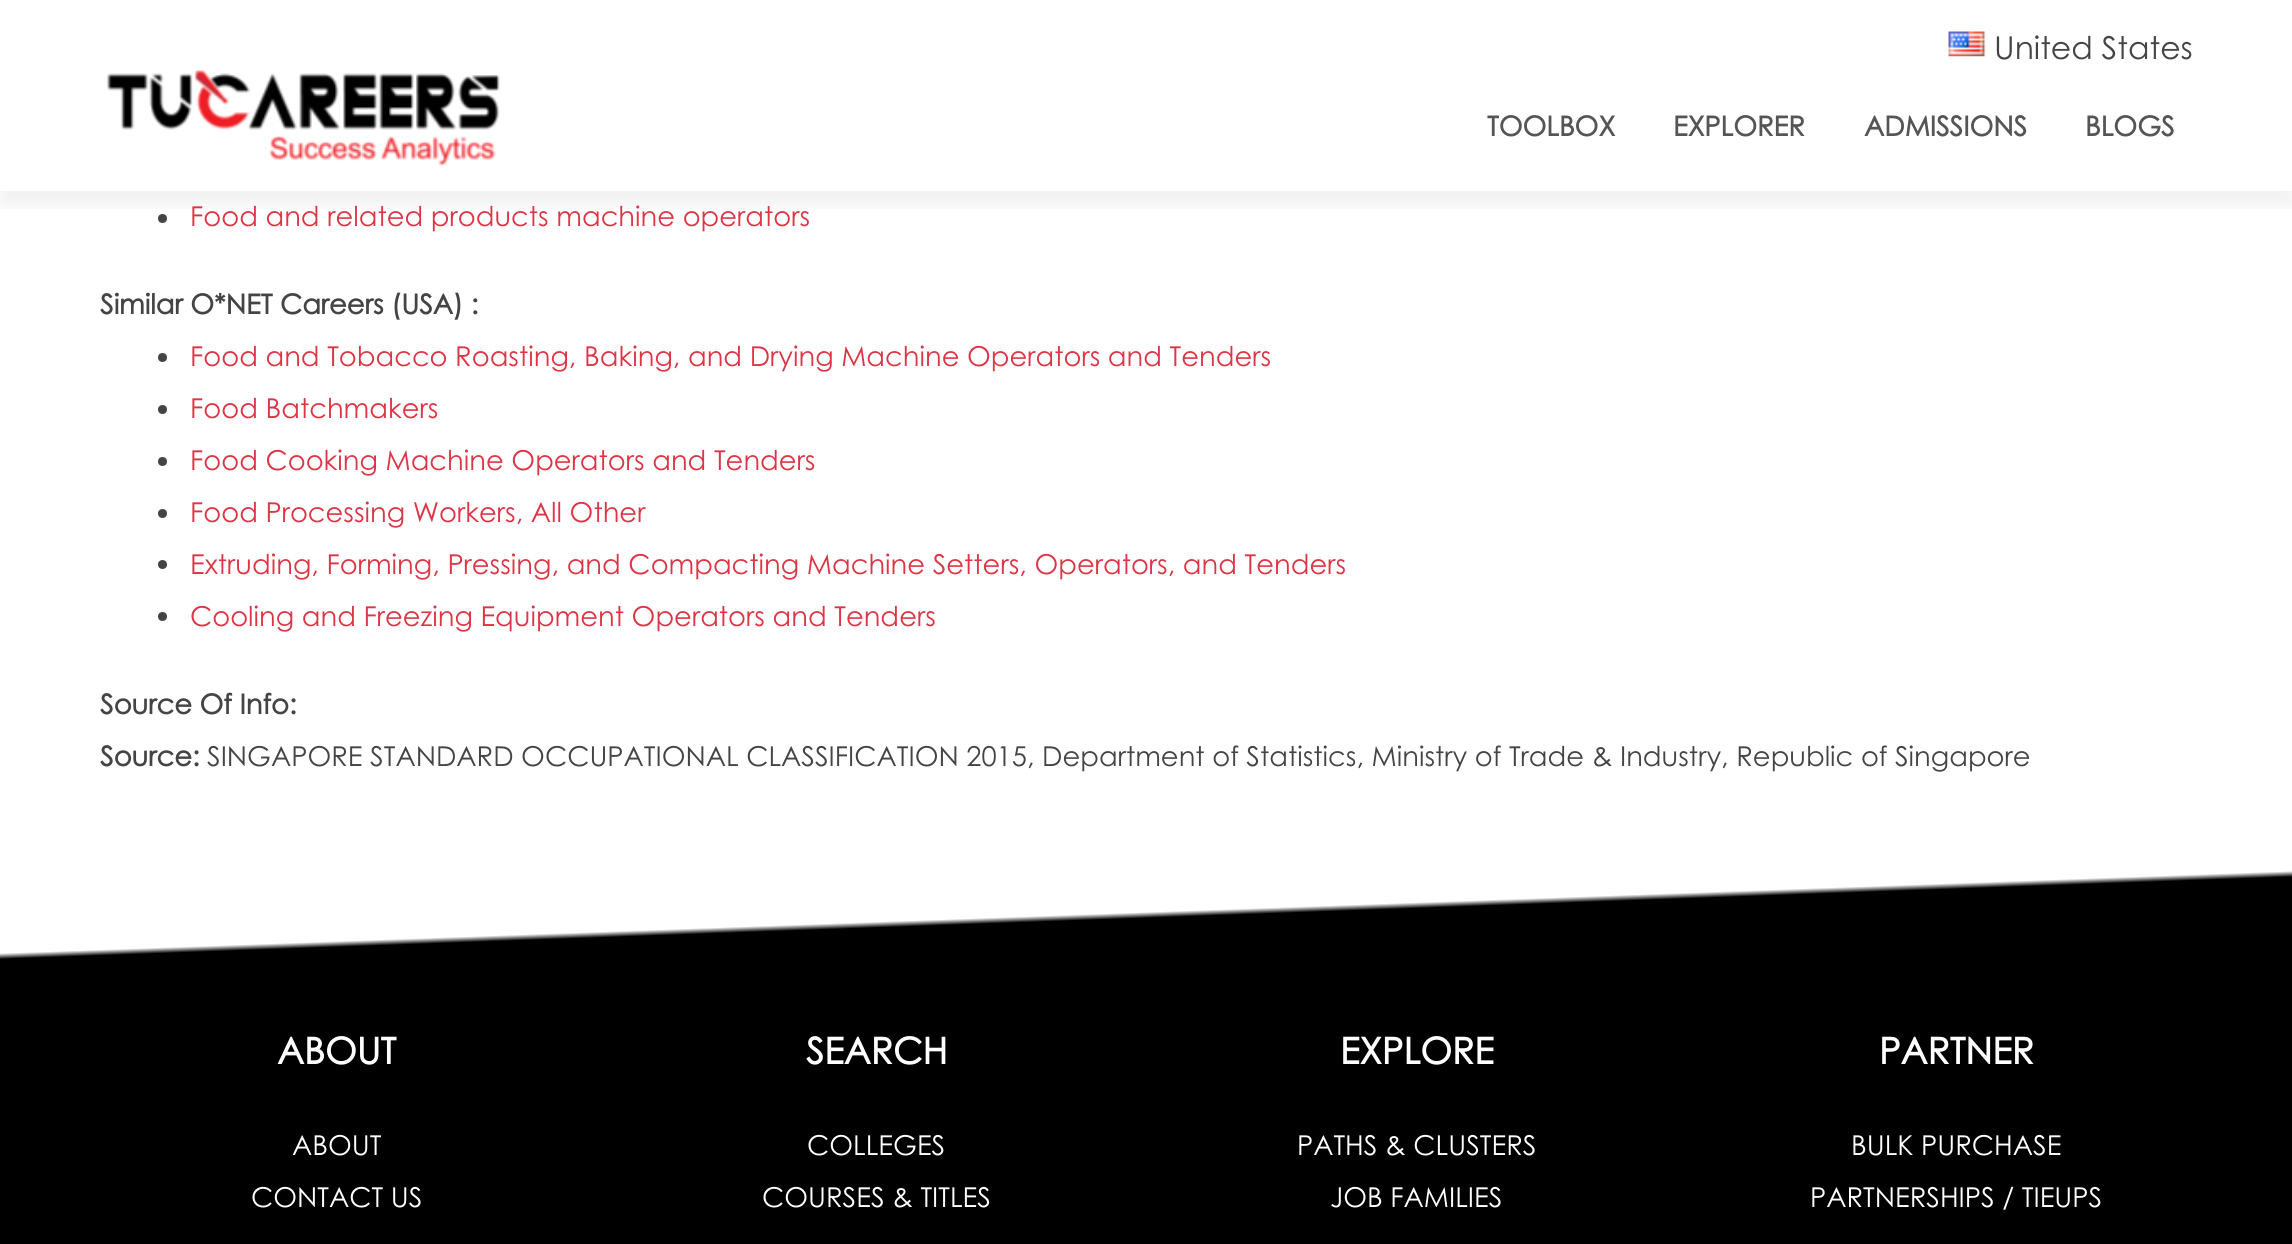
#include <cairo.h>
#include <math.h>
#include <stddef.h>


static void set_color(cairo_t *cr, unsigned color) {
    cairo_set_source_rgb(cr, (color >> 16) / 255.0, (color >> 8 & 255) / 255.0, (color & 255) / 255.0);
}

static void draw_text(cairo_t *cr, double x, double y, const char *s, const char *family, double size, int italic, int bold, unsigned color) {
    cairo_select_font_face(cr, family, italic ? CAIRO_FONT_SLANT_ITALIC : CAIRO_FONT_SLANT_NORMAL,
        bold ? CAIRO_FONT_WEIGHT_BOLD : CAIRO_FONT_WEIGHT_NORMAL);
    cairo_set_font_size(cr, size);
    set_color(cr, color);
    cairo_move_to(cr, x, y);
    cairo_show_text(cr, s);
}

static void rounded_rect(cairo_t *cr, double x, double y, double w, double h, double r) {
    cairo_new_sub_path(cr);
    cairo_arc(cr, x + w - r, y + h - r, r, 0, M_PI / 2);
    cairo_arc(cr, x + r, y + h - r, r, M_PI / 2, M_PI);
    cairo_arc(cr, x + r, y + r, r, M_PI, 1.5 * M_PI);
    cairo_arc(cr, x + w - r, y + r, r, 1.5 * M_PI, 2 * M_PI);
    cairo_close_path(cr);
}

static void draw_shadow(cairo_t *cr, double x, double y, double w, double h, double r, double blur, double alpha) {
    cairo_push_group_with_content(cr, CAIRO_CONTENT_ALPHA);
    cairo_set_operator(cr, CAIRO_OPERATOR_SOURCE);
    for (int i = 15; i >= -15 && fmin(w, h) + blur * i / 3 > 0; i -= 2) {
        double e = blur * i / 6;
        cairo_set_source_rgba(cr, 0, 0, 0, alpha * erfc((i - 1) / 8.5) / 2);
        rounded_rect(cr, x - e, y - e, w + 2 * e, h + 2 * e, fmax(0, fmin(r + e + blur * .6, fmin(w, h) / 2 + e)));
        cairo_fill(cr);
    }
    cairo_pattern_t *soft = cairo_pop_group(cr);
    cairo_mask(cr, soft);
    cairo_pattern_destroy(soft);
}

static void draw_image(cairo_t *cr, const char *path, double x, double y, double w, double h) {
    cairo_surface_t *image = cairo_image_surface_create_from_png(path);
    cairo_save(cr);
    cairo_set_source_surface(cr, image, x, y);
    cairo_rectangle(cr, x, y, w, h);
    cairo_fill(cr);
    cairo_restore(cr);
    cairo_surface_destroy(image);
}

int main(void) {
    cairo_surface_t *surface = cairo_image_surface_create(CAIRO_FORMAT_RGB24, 2292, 1244);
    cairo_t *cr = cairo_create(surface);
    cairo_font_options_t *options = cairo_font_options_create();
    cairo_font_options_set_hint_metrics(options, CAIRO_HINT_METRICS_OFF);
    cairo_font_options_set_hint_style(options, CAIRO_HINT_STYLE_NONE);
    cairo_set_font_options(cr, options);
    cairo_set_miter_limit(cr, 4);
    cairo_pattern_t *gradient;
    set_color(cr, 0xFFFFFF);
    cairo_paint(cr);
    draw_image(cr, "assets/img1.png", 1948, 31, 38, 26);
    draw_text(cr, 1994, 59, "United States", "Century Gothic", 31.5, 0, 0, 0x444444);
    cairo_new_path(cr);
    cairo_arc(cr, 162.5, 218.5, 4.5, 0, 2 * M_PI);
    cairo_fill(cr);
    cairo_save(cr);
    cairo_rectangle(cr, 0, 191, 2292, 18);
    cairo_clip(cr);
    set_color(cr, 0x000000);
    draw_shadow(cr, 0, 92, 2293, 113, 0, 10, 0.06);
    cairo_restore(cr);
    draw_image(cr, "assets/img2.png", 107, 70, 393, 96);
    draw_text(cr, 1487, 136, "TOOLBOX", "Century Gothic", 27.38, 0, 1, 0x555555);
    draw_text(cr, 1673, 136, "EXPLORER", "Century Gothic", 27.38, 0, 1, 0x555555);
    draw_text(cr, 1864, 136, "ADMISSIONS", "Century Gothic", 27.38, 0, 1, 0x555555);
    draw_text(cr, 2085, 136, "BLOGS", "Century Gothic", 27.38, 0, 1, 0x555555);
    draw_text(cr, 190, 226, "Food and related products machine operators", "Century Gothic", 27.38, 0, 0, 0xDC3545);
    draw_text(cr, 100, 314, "Similar O*NET Careers (USA) :", "Century Gothic", 27.38, 0, 1, 0x444444);
    cairo_new_path(cr);
    cairo_arc(cr, 162.5, 357.5, 4.5, 0, 2 * M_PI);
    cairo_fill(cr);
    draw_text(cr, 190, 366, "Food and Tobacco Roasting, Baking, and Drying Machine Operators and Tenders", "Century Gothic", 27.38, 0, 0, 0xDC3545);
    set_color(cr, 0x444444);
    cairo_new_path(cr);
    cairo_arc(cr, 162.5, 409.5, 4.5, 0, 2 * M_PI);
    cairo_fill(cr);
    draw_text(cr, 190, 418, "Food Batchmakers", "Century Gothic", 27.38, 0, 0, 0xDC3545);
    set_color(cr, 0x444444);
    cairo_new_path(cr);
    cairo_arc(cr, 162.5, 461.5, 4.5, 0, 2 * M_PI);
    cairo_fill(cr);
    draw_text(cr, 190, 470, "Food Cooking Machine Operators and Tenders", "Century Gothic", 27.38, 0, 0, 0xDC3545);
    set_color(cr, 0x444444);
    cairo_new_path(cr);
    cairo_arc(cr, 162.5, 513.5, 4.5, 0, 2 * M_PI);
    cairo_fill(cr);
    draw_text(cr, 190, 522, "Food Processing Workers, All Other", "Century Gothic", 27.38, 0, 0, 0xDC3545);
    set_color(cr, 0x444444);
    cairo_new_path(cr);
    cairo_arc(cr, 162.5, 564.5, 4.5, 0, 2 * M_PI);
    cairo_fill(cr);
    draw_text(cr, 190, 574, "Extruding, Forming, Pressing, and Compacting Machine Setters, Operators, and Tenders", "Century Gothic", 27.38, 0, 0, 0xDC3545);
    set_color(cr, 0x444444);
    cairo_new_path(cr);
    cairo_arc(cr, 162.5, 616.5, 4.5, 0, 2 * M_PI);
    cairo_fill(cr);
    draw_text(cr, 190, 626, "Cooling and Freezing Equipment Operators and Tenders", "Century Gothic", 27.38, 0, 0, 0xDC3545);
    draw_text(cr, 100, 714, "Source Of Info:", "Century Gothic", 27.38, 0, 1, 0x444444);
    draw_text(cr, 100, 766, "Source:", "Century Gothic", 27.38, 0, 1, 0x444444);
    draw_text(cr, 207, 766, "SINGAPORE STANDARD OCCUPATIONAL CLASSIFICATION 2015, Department of Statistics, Ministry of Trade & Industry, Republic of Singapore", "Century Gothic", 27.38, 0, 0, 0x444444);
    gradient = cairo_pattern_create_linear(1136, 766, 1157, 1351);
    cairo_pattern_add_color_stop_rgba(gradient, 0, 1, 1, 1, 1);
    cairo_pattern_add_color_stop_rgba(gradient, 0.25, 1, 1, 1, 1);
    cairo_pattern_add_color_stop_rgba(gradient, 0.26, 0, 0, 0, 1);
    cairo_pattern_add_color_stop_rgba(gradient, 1, 0, 0, 0, 1);
    cairo_set_source(cr, gradient);
    cairo_pattern_destroy(gradient);
    cairo_rectangle(cr, 0, 871, 2292, 373);
    cairo_fill(cr);
    draw_text(cr, 277, 1064, "ABOUT", "Century Gothic", 36.5, 0, 1, 0xFFFFFF);
    draw_text(cr, 292, 1155, "ABOUT", "Century Gothic", 27.38, 0, 0, 0xFFFFFF);
    draw_text(cr, 251, 1207, "CONTACT US", "Century Gothic", 27.38, 0, 0, 0xFFFFFF);
    draw_text(cr, 806, 1064, "SEARCH", "Century Gothic", 36.5, 0, 1, 0xFFFFFF);
    draw_text(cr, 807, 1155, "COLLEGES", "Century Gothic", 27.38, 0, 0, 0xFFFFFF);
    draw_text(cr, 762, 1207, "COURSES & TITLES", "Century Gothic", 27.38, 0, 0, 0xFFFFFF);
    draw_text(cr, 1340, 1064, "EXPLORE", "Century Gothic", 36.5, 0, 1, 0xFFFFFF);
    draw_text(cr, 1297, 1155, "PATHS & CLUSTERS", "Century Gothic", 27.38, 0, 0, 0xFFFFFF);
    draw_text(cr, 1330, 1207, "JOB FAMILIES", "Century Gothic", 27.38, 0, 0, 0xFFFFFF);
    draw_text(cr, 1879, 1064, "PARTNER", "Century Gothic", 36.5, 0, 1, 0xFFFFFF);
    draw_text(cr, 1851, 1155, "BULK PURCHASE", "Century Gothic", 27.38, 0, 0, 0xFFFFFF);
    draw_text(cr, 1810, 1207, "PARTNERSHIPS / TIEUPS", "Century Gothic", 27.38, 0, 0, 0xFFFFFF);
    cairo_surface_write_to_png(surface, "output.png");
    cairo_font_options_destroy(options);
    cairo_destroy(cr);
    cairo_surface_destroy(surface);
    return 0;
}
